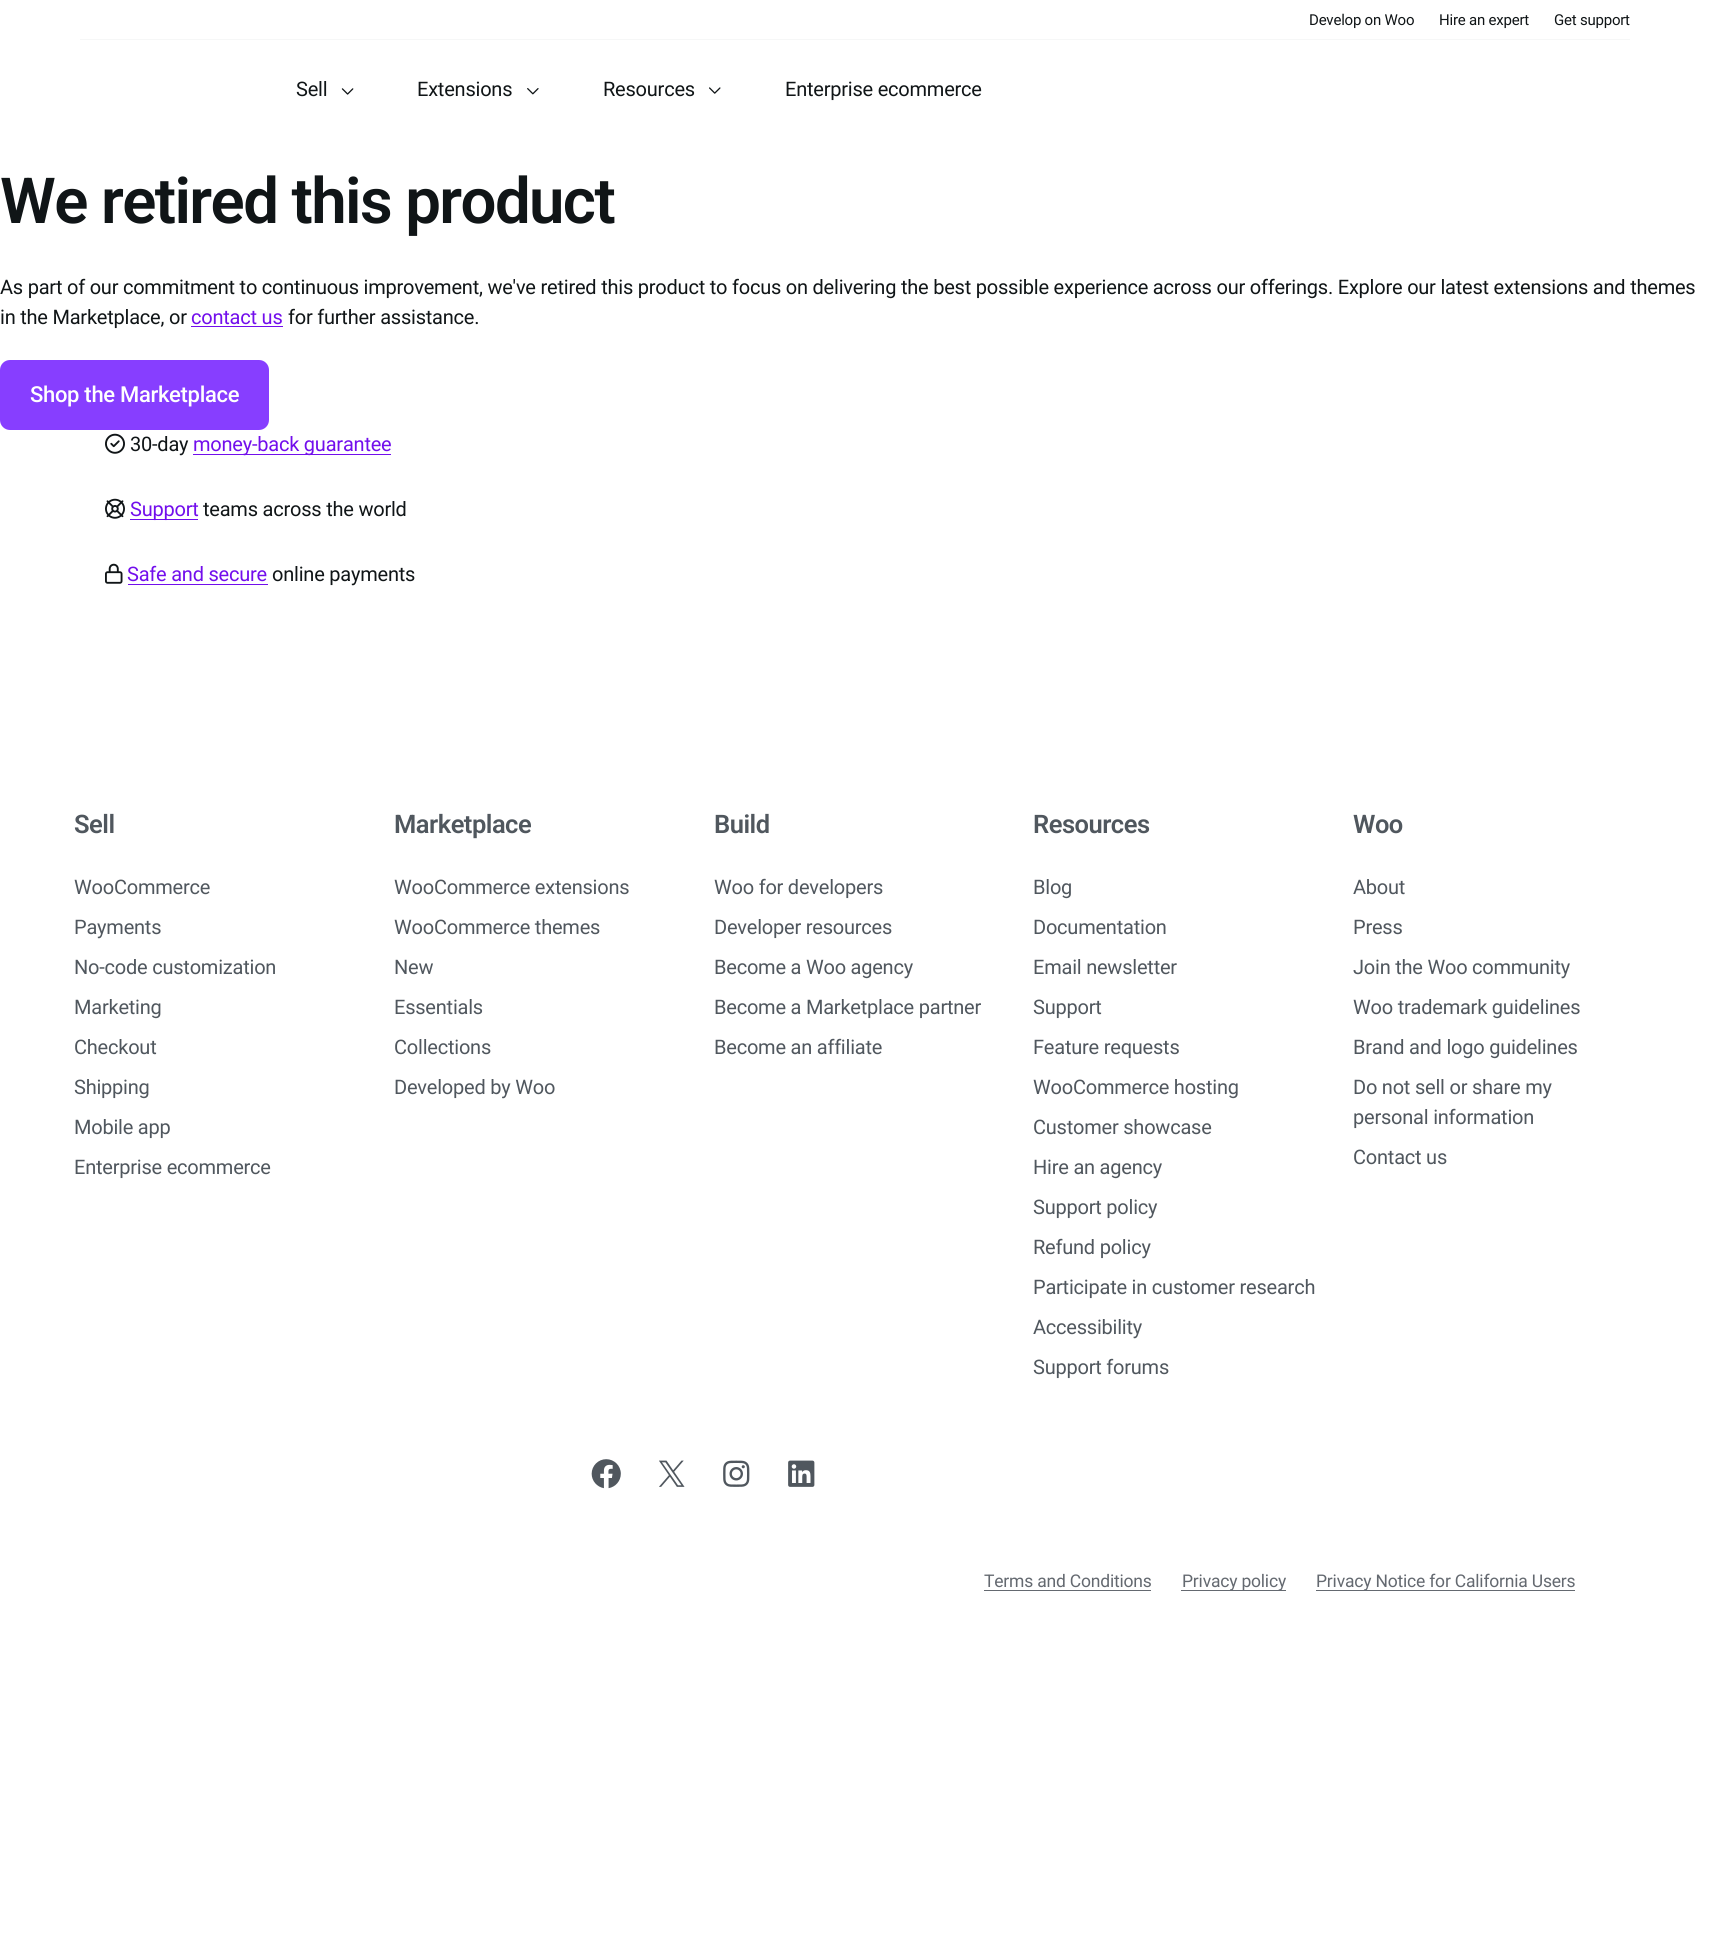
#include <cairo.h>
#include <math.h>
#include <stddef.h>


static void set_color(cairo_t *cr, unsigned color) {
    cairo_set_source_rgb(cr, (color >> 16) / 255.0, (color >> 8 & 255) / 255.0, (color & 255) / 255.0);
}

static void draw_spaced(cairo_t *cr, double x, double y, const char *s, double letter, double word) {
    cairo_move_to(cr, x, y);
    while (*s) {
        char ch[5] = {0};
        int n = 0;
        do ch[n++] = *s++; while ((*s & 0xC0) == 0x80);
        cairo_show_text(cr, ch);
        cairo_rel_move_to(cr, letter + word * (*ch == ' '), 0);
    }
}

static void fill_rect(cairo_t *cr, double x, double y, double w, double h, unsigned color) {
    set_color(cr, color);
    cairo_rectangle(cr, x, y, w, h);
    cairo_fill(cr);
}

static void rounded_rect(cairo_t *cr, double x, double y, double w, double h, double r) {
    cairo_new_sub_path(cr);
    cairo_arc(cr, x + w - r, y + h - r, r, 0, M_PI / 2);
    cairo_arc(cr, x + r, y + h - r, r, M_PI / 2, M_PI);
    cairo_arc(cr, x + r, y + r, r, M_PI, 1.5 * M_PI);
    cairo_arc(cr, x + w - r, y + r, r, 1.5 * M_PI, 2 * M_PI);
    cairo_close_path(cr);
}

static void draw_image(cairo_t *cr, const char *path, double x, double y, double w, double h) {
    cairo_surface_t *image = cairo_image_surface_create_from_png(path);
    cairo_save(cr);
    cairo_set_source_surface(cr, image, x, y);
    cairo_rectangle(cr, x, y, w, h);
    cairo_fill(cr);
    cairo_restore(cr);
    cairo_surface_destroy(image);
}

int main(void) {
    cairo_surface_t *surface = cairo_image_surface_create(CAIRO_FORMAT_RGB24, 1709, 1947);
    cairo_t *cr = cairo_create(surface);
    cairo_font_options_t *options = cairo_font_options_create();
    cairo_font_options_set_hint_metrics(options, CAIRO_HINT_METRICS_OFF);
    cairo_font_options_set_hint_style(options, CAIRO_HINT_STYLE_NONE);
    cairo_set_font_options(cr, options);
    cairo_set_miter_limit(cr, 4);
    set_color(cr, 0xFFFFFF);
    cairo_paint(cr);
    fill_rect(cr, 80, 39, 1550, 1, 0xF6F7F7);
    cairo_select_font_face(cr, "Roboto", CAIRO_FONT_SLANT_NORMAL, CAIRO_FONT_WEIGHT_NORMAL);
    cairo_set_font_size(cr, 15);
    set_color(cr, 0x101517);
    draw_spaced(cr, 1309, 25, "Develop on Woo", -0.22, 0);
    draw_spaced(cr, 1439, 25, "Hire an expert", -0.22, 0);
    draw_spaced(cr, 1554, 25, "Get support", -0.22, 0);
    cairo_set_font_size(cr, 20);
    draw_spaced(cr, 296, 96, "Sell", -0.22, 0);
    draw_image(cr, "assets/img1.png", 341, 88, 13, 7);
    draw_spaced(cr, 417, 96, "Extensions", -0.22, 0);
    draw_image(cr, "assets/img2.png", 527, 88, 12, 7);
    draw_spaced(cr, 603, 96, "Resources", -0.22, 0);
    draw_image(cr, "assets/img3.png", 709, 87, 12, 7);
    draw_spaced(cr, 785, 96, "Enterprise ecommerce", -0.22, 0);
    cairo_select_font_face(cr, "Roboto SemiBold", CAIRO_FONT_SLANT_NORMAL, CAIRO_FONT_WEIGHT_NORMAL);
    cairo_set_font_size(cr, 63.5);
    draw_spaced(cr, 0, 223, "We retired this product", -1.6, 0);
    cairo_select_font_face(cr, "Roboto", CAIRO_FONT_SLANT_NORMAL, CAIRO_FONT_WEIGHT_NORMAL);
    cairo_set_font_size(cr, 20);
    draw_spaced(cr, 0, 294, "As part of our commitment to continuous improvement, we've retired this product to focus on delivering the best possible experience across our offerings. Explore our latest extensions and themes", -0.22, 0);
    draw_spaced(cr, 0, 324, "in the Marketplace, or", -0.22, 0);
    set_color(cr, 0x720EEC);
    draw_spaced(cr, 191, 324, "contact us", -0.22, 0);
    fill_rect(cr, 191, 326, 92, 1, 0x720EEC);
    set_color(cr, 0x101517);
    draw_spaced(cr, 288, 324, "for further assistance.", -0.22, 0);
    set_color(cr, 0x873EFF);
    rounded_rect(cr, 0, 360, 269, 70, 10);
    cairo_fill(cr);
    cairo_select_font_face(cr, "Roboto Medium", CAIRO_FONT_SLANT_NORMAL, CAIRO_FONT_WEIGHT_NORMAL);
    cairo_set_font_size(cr, 22);
    set_color(cr, 0xFFFFFF);
    draw_spaced(cr, 30, 402, "Shop the Marketplace", -0.3, 0);
    draw_image(cr, "assets/img4.png", 105, 433, 20, 21);
    cairo_select_font_face(cr, "Roboto", CAIRO_FONT_SLANT_NORMAL, CAIRO_FONT_WEIGHT_NORMAL);
    cairo_set_font_size(cr, 20);
    set_color(cr, 0x101517);
    draw_spaced(cr, 130, 451, "30-day", -0.22, 0);
    fill_rect(cr, 193, 454, 198, 1, 0x720EEC);
    draw_spaced(cr, 193, 451, "money-back guarantee", -0.22, 0);
    draw_image(cr, "assets/img5.png", 105, 498, 20, 21);
    fill_rect(cr, 130, 519, 68, 1, 0x720EEC);
    draw_spaced(cr, 130, 516, "Support", -0.22, 0);
    set_color(cr, 0x101517);
    draw_spaced(cr, 203, 516, "teams across the world", -0.22, 0);
    draw_image(cr, "assets/img6.png", 105, 563, 18, 21);
    set_color(cr, 0x720EEC);
    draw_spaced(cr, 127, 581, "Safe and secure", -0.22, 0);
    set_color(cr, 0x101517);
    draw_spaced(cr, 272, 581, "online payments", -0.22, 0);
    fill_rect(cr, 128, 584, 140, 1, 0x720EEC);
    cairo_select_font_face(cr, "Roboto SemiBold", CAIRO_FONT_SLANT_NORMAL, CAIRO_FONT_WEIGHT_NORMAL);
    cairo_set_font_size(cr, 25.5);
    set_color(cr, 0x50575E);
    draw_spaced(cr, 74, 833, "Sell", -0.5, 0);
    cairo_select_font_face(cr, "Roboto", CAIRO_FONT_SLANT_NORMAL, CAIRO_FONT_WEIGHT_NORMAL);
    cairo_set_font_size(cr, 20);
    draw_spaced(cr, 74, 894, "WooCommerce", -0.22, 0);
    draw_spaced(cr, 74, 934, "Payments", -0.22, 0);
    draw_spaced(cr, 74, 974, "No-code customization", -0.22, 0);
    draw_spaced(cr, 74, 1014, "Marketing", -0.22, 0);
    draw_spaced(cr, 74, 1054, "Checkout", -0.22, 0);
    draw_spaced(cr, 74, 1094, "Shipping", -0.22, 0);
    draw_spaced(cr, 74, 1134, "Mobile app", -0.22, 0);
    draw_spaced(cr, 74, 1174, "Enterprise ecommerce", -0.22, 0);
    cairo_select_font_face(cr, "Roboto SemiBold", CAIRO_FONT_SLANT_NORMAL, CAIRO_FONT_WEIGHT_NORMAL);
    cairo_set_font_size(cr, 25.5);
    draw_spaced(cr, 394, 833, "Marketplace", -0.5, 0);
    cairo_select_font_face(cr, "Roboto", CAIRO_FONT_SLANT_NORMAL, CAIRO_FONT_WEIGHT_NORMAL);
    cairo_set_font_size(cr, 20);
    draw_spaced(cr, 394, 894, "WooCommerce extensions", -0.22, 0);
    draw_spaced(cr, 394, 934, "WooCommerce themes", -0.22, 0);
    draw_spaced(cr, 394, 974, "New", -0.22, 0);
    draw_spaced(cr, 394, 1014, "Essentials", -0.22, 0);
    draw_spaced(cr, 394, 1054, "Collections", -0.22, 0);
    draw_spaced(cr, 394, 1094, "Developed by Woo", -0.22, 0);
    cairo_select_font_face(cr, "Roboto SemiBold", CAIRO_FONT_SLANT_NORMAL, CAIRO_FONT_WEIGHT_NORMAL);
    cairo_set_font_size(cr, 25.5);
    draw_spaced(cr, 714, 833, "Build", -0.5, 0);
    cairo_select_font_face(cr, "Roboto", CAIRO_FONT_SLANT_NORMAL, CAIRO_FONT_WEIGHT_NORMAL);
    cairo_set_font_size(cr, 20);
    draw_spaced(cr, 714, 894, "Woo for developers", -0.22, 0);
    draw_spaced(cr, 714, 934, "Developer resources", -0.22, 0);
    draw_spaced(cr, 714, 974, "Become a Woo agency", -0.22, 0);
    draw_spaced(cr, 714, 1014, "Become a Marketplace partner", -0.22, 0);
    draw_spaced(cr, 714, 1054, "Become an affiliate", -0.22, 0);
    cairo_select_font_face(cr, "Roboto SemiBold", CAIRO_FONT_SLANT_NORMAL, CAIRO_FONT_WEIGHT_NORMAL);
    cairo_set_font_size(cr, 25.5);
    draw_spaced(cr, 1033, 833, "Resources", -0.5, 0);
    cairo_select_font_face(cr, "Roboto", CAIRO_FONT_SLANT_NORMAL, CAIRO_FONT_WEIGHT_NORMAL);
    cairo_set_font_size(cr, 20);
    draw_spaced(cr, 1033, 894, "Blog", -0.22, 0);
    draw_spaced(cr, 1033, 934, "Documentation", -0.22, 0);
    draw_spaced(cr, 1033, 974, "Email newsletter", -0.22, 0);
    draw_spaced(cr, 1033, 1014, "Support", -0.22, 0);
    draw_spaced(cr, 1033, 1054, "Feature requests", -0.22, 0);
    draw_spaced(cr, 1033, 1094, "WooCommerce hosting", -0.22, 0);
    draw_spaced(cr, 1033, 1134, "Customer showcase", -0.22, 0);
    draw_spaced(cr, 1033, 1174, "Hire an agency", -0.22, 0);
    draw_spaced(cr, 1033, 1214, "Support policy", -0.22, 0);
    draw_spaced(cr, 1033, 1254, "Refund policy", -0.22, 0);
    draw_spaced(cr, 1033, 1294, "Participate in customer research", -0.22, 0);
    draw_spaced(cr, 1033, 1334, "Accessibility", -0.22, 0);
    draw_spaced(cr, 1033, 1374, "Support forums", -0.22, 0);
    cairo_select_font_face(cr, "Roboto SemiBold", CAIRO_FONT_SLANT_NORMAL, CAIRO_FONT_WEIGHT_NORMAL);
    cairo_set_font_size(cr, 25.5);
    draw_spaced(cr, 1353, 833, "Woo", -0.5, 0);
    cairo_select_font_face(cr, "Roboto", CAIRO_FONT_SLANT_NORMAL, CAIRO_FONT_WEIGHT_NORMAL);
    cairo_set_font_size(cr, 20);
    draw_spaced(cr, 1353, 894, "About", -0.22, 0);
    draw_spaced(cr, 1353, 934, "Press", -0.22, 0);
    draw_spaced(cr, 1353, 974, "Join the Woo community", -0.22, 0);
    draw_spaced(cr, 1353, 1014, "Woo trademark guidelines", -0.22, 0);
    draw_spaced(cr, 1353, 1054, "Brand and logo guidelines", -0.22, 0);
    draw_spaced(cr, 1353, 1094, "Do not sell or share my", -0.22, 0);
    draw_spaced(cr, 1353, 1124, "personal information", -0.22, 0);
    draw_spaced(cr, 1353, 1164, "Contact us", -0.22, 0);
    draw_image(cr, "assets/img7.png", 591, 1459, 30, 30);
    draw_image(cr, "assets/img8.png", 659, 1460, 26, 27);
    draw_image(cr, "assets/img9.png", 723, 1460, 27, 27);
    draw_image(cr, "assets/img10.png", 788, 1460, 27, 27);
    cairo_set_font_size(cr, 17.5);
    set_color(cr, 0x646970);
    draw_spaced(cr, 984, 1587, "Terms and Conditions", -0.2, 0);
    fill_rect(cr, 984, 1590, 167, 1, 0x646970);
    fill_rect(cr, 1181, 1590, 105, 1, 0x646970);
    draw_spaced(cr, 1182, 1587, "Privacy policy", -0.2, 0);
    fill_rect(cr, 1316, 1590, 259, 1, 0x646970);
    draw_spaced(cr, 1316, 1587, "Privacy Notice for California Users", -0.2, 0);
    cairo_surface_write_to_png(surface, "output.png");
    cairo_font_options_destroy(options);
    cairo_destroy(cr);
    cairo_surface_destroy(surface);
    return 0;
}
